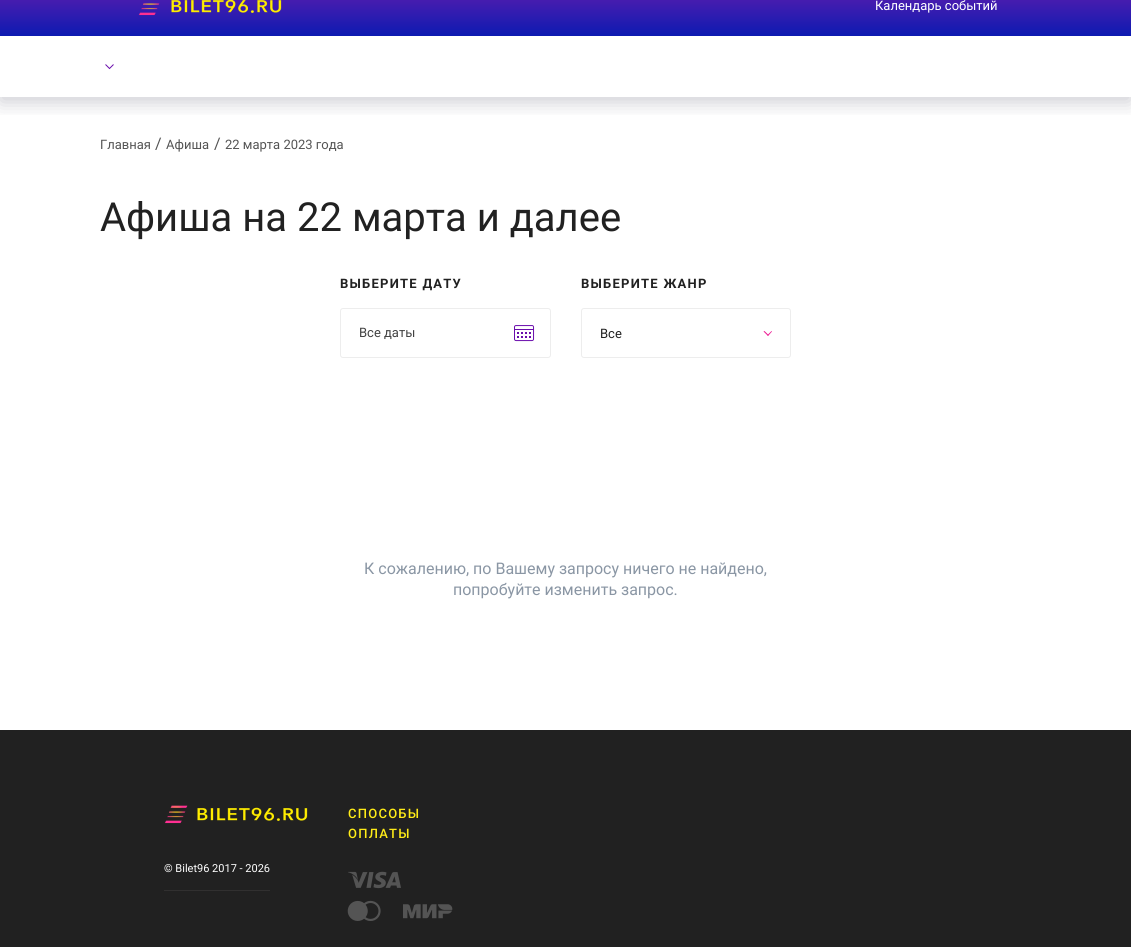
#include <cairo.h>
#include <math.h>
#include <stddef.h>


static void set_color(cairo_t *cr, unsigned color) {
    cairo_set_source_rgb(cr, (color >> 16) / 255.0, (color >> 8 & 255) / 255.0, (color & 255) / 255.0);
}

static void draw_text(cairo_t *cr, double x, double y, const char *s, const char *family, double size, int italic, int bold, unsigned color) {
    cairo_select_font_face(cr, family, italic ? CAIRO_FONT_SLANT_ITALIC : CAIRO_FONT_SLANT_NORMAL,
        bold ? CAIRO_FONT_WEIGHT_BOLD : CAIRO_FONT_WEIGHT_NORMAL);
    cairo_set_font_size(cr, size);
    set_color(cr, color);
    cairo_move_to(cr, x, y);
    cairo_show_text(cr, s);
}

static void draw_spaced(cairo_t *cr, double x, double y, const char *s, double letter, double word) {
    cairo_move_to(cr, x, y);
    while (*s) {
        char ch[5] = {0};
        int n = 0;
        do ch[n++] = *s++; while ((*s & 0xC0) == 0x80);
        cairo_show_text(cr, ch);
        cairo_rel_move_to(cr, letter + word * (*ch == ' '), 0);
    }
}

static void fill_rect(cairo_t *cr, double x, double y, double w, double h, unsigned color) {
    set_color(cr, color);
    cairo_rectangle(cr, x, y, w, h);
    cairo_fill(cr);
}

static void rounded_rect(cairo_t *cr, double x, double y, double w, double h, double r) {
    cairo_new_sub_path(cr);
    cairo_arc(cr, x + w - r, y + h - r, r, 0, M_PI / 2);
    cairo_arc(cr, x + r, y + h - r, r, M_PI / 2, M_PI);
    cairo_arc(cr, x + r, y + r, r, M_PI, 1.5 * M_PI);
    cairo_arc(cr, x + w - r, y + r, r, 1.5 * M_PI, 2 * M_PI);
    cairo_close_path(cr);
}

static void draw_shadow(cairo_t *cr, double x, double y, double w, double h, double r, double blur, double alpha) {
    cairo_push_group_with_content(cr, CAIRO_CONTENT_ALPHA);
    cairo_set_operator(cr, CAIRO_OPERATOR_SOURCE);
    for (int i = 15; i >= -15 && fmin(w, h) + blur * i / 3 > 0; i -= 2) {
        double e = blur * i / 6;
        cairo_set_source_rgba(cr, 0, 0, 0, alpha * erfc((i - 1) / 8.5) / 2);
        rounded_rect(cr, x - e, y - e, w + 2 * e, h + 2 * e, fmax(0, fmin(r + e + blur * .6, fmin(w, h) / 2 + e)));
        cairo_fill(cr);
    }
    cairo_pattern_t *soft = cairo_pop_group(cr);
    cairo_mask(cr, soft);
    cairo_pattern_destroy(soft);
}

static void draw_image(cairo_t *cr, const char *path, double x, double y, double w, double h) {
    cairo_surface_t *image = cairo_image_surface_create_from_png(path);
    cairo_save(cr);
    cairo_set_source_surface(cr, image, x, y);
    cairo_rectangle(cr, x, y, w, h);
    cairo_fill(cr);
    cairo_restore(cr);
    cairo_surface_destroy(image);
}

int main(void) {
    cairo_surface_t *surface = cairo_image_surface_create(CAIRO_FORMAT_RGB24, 1131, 947);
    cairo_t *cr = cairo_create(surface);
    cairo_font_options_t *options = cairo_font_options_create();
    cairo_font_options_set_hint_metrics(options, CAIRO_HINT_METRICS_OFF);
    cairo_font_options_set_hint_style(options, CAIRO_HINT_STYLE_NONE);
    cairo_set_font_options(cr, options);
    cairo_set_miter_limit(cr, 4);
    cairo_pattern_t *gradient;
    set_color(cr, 0xFFFFFF);
    cairo_paint(cr);
    cairo_save(cr);
    cairo_rectangle(cr, 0, 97, 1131, 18);
    cairo_clip(cr);
    set_color(cr, 0x03031C);
    draw_shadow(cr, 0, -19, 1131, 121, 0, 10, 0.2);
    cairo_restore(cr);
    gradient = cairo_pattern_create_linear(566, -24, 566, 36);
    cairo_pattern_add_color_stop_rgba(gradient, 0, 0.424, 0.114, 0.682, 1);
    cairo_pattern_add_color_stop_rgba(gradient, 1, 0.051, 0.106, 0.694, 1);
    cairo_set_source(cr, gradient);
    cairo_pattern_destroy(gradient);
    cairo_rectangle(cr, 0, 0, 1131, 36);
    cairo_fill(cr);
    draw_image(cr, "assets/img1.png", 138, 0, 144, 16);
    draw_text(cr, 875, 10, "Календарь событий", "Roboto", 13, 0, 0, 0xFFFFFF);
    cairo_new_path(cr);
    cairo_move_to(cr, 105.5, 64.5);
    cairo_line_to(cr, 109.5, 68.5);
    cairo_line_to(cr, 113.5, 64.5);
    set_color(cr, 0x6A0DAC);
    cairo_set_line_width(cr, 1);
    cairo_stroke(cr);
    draw_text(cr, 100, 149, "Главная", "Roboto", 13, 0, 0, 0x545454);
    draw_text(cr, 155, 149, "/", "Roboto", 16, 0, 0, 0x545454);
    draw_text(cr, 166, 149, "Афиша", "Roboto", 13, 0, 0, 0x545454);
    draw_text(cr, 214, 149, "/", "Roboto", 16, 0, 0, 0x545454);
    draw_text(cr, 225, 149, "22 марта 2023 года", "Roboto", 13, 0, 0, 0x545454);
    draw_text(cr, 100, 231, "Афиша на 22 марта и далее", "Roboto", 40, 0, 0, 0x212121);
    cairo_select_font_face(cr, "Roboto", CAIRO_FONT_SLANT_NORMAL, CAIRO_FONT_WEIGHT_BOLD);
    cairo_set_font_size(cr, 13);
    draw_spaced(cr, 340, 288, "ВЫБЕРИТЕ ДАТУ", 1.25, 0);
    rounded_rect(cr, 340.5, 308.5, 210, 49, 2.5);
    set_color(cr, 0xEDEDED);
    cairo_stroke(cr);
    draw_text(cr, 359, 337, "Все даты", "Roboto", 13, 0, 0, 0x424242);
    draw_image(cr, "assets/img2.png", 514, 325, 21, 17);
    cairo_select_font_face(cr, "Roboto", CAIRO_FONT_SLANT_NORMAL, CAIRO_FONT_WEIGHT_BOLD);
    set_color(cr, 0x212121);
    draw_spaced(cr, 581, 288, "ВЫБЕРИТЕ ЖАНР", 1.25, 0);
    rounded_rect(cr, 581.5, 308.5, 209, 49, 2.5);
    set_color(cr, 0xEDEDED);
    cairo_stroke(cr);
    draw_text(cr, 600, 338, "Все", "Roboto", 13, 0, 0, 0x212121);
    set_color(cr, 0xED1C94);
    cairo_new_path(cr);
    cairo_move_to(cr, 771.5, 331);
    cairo_line_to(cr, 772, 331.5);
    cairo_line_to(cr, 768, 336);
    cairo_line_to(cr, 767.5, 335);
    cairo_close_path(cr);
    cairo_fill(cr);
    cairo_new_path(cr);
    cairo_move_to(cr, 764.5, 331);
    cairo_line_to(cr, 768.5, 335);
    cairo_line_to(cr, 768, 336);
    cairo_line_to(cr, 763.5, 331.5);
    cairo_close_path(cr);
    cairo_fill(cr);
    draw_text(cr, 364, 574, "К сожалению, по Вашему запросу ничего не найдено,", "Roboto", 16, 0, 0, 0x8A96A4);
    draw_text(cr, 453, 595, "попробуйте изменить запрос.", "Roboto", 16, 0, 0, 0x8A96A4);
    fill_rect(cr, 0, 730, 1131, 217, 0x212121);
    cairo_select_font_face(cr, "Roboto Medium", CAIRO_FONT_SLANT_NORMAL, CAIRO_FONT_WEIGHT_NORMAL);
    cairo_set_font_size(cr, 13);
    set_color(cr, 0xFFEC17);
    draw_spaced(cr, 348, 818, "СПОСОБЫ", 1.25, 0);
    draw_spaced(cr, 348, 838, "ОПЛАТЫ", 1.25, 0);
    draw_image(cr, "assets/img3.png", 348, 871, 53, 18);
    draw_image(cr, "assets/img4.png", 347, 900, 34, 21);
    draw_image(cr, "assets/img5.png", 403, 904, 50, 15);
    draw_image(cr, "assets/img6.png", 164, 805, 144, 19);
    fill_rect(cr, 164, 890, 106, 1, 0x313030);
    draw_text(cr, 164, 872, "© Bilet96 2017 - 2026", "Roboto", 11, 0, 0, 0xFFFFFF);
    cairo_surface_write_to_png(surface, "output.png");
    cairo_font_options_destroy(options);
    cairo_destroy(cr);
    cairo_surface_destroy(surface);
    return 0;
}
